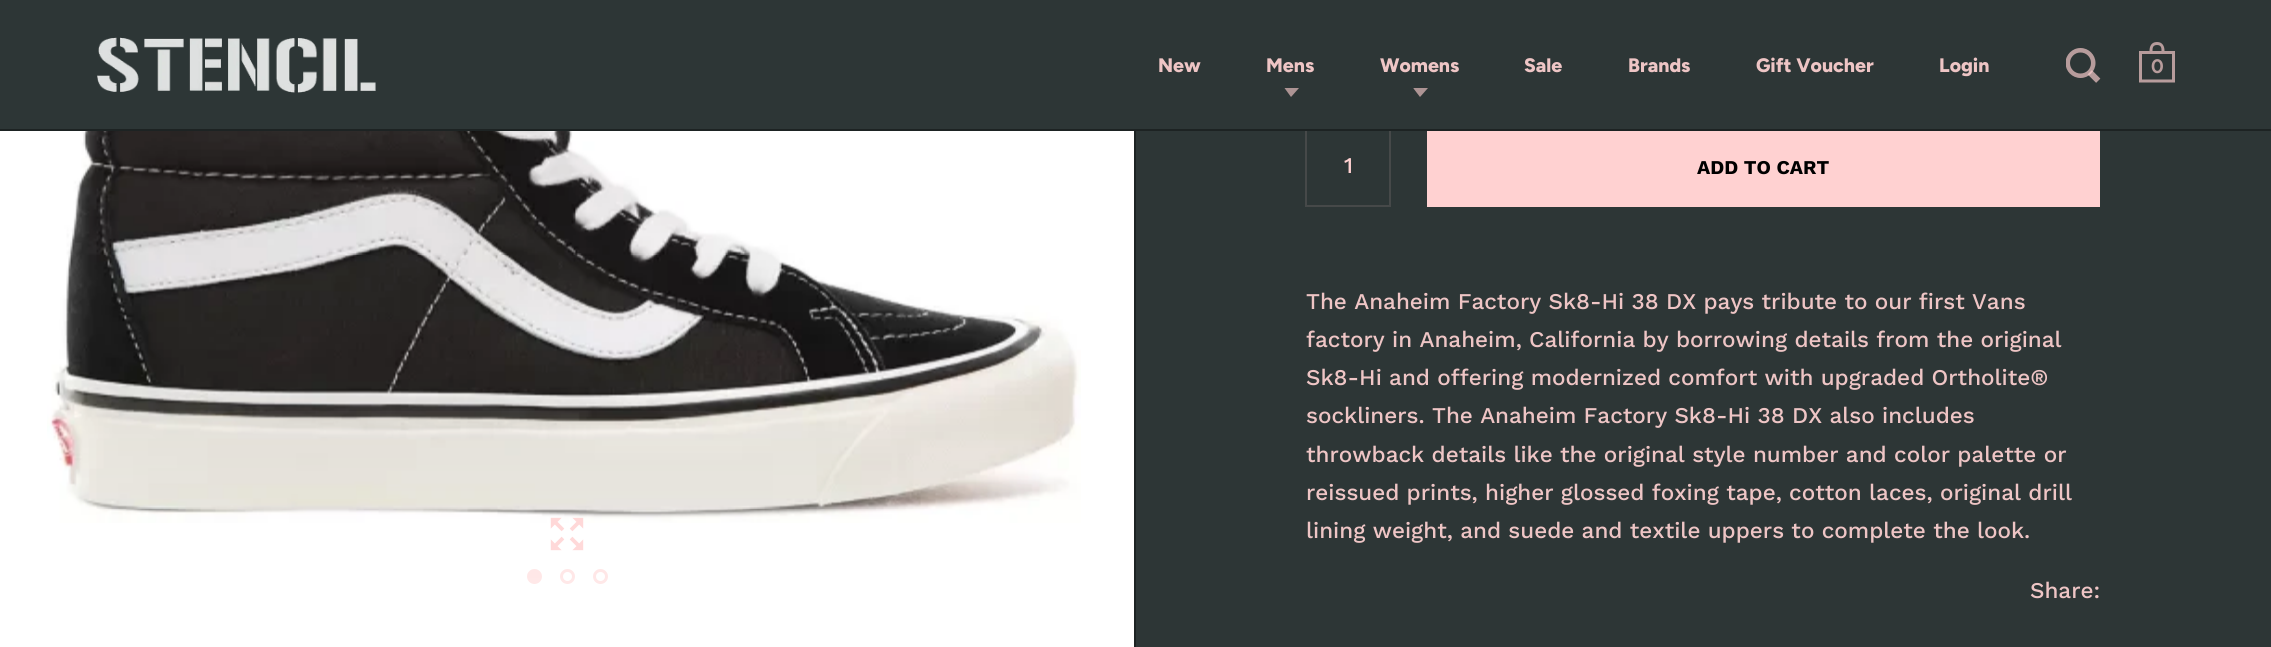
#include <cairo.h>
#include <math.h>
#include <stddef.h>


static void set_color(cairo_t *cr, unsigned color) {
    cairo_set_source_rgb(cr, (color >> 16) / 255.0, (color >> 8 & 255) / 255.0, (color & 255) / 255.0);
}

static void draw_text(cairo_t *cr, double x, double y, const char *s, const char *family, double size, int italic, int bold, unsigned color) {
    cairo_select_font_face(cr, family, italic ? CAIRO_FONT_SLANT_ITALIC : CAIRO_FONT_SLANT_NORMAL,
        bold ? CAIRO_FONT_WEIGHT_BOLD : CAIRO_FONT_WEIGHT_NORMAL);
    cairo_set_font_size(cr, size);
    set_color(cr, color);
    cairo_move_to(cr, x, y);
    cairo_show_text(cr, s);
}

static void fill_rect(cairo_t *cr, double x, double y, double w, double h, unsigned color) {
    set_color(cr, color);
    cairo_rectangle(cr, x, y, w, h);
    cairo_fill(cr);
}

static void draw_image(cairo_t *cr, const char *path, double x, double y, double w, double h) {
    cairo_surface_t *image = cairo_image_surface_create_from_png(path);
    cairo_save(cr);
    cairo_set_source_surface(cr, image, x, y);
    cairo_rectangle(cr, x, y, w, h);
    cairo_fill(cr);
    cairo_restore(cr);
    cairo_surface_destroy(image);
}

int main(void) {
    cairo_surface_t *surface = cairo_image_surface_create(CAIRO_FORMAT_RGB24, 2271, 647);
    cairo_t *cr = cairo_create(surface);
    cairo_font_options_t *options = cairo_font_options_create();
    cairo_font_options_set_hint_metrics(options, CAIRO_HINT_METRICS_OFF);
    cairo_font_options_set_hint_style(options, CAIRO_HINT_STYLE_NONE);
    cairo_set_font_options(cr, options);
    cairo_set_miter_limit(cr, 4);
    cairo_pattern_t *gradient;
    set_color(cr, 0x2D3636);
    cairo_paint(cr);
    cairo_rectangle(cr, 1306, 126, 84, 80);
    set_color(cr, 0x464949);
    cairo_stroke(cr);
    fill_rect(cr, 1305, 125, 86, 4, 0x2D3636);
    fill_rect(cr, 0, 129, 2271, 2, 0x1D2323);
    draw_image(cr, "assets/img1.png", 97, 37, 279, 56);
    draw_text(cr, 1158, 72, "New", "Figtree ExtraBold", 19.5, 0, 0, 0xEEC5C5);
    draw_text(cr, 1266, 72, "Mens", "Figtree ExtraBold", 19.5, 0, 0, 0xEEC5C5);
    set_color(cr, 0xAD9494);
    cairo_new_path(cr);
    cairo_move_to(cr, 1299, 88);
    cairo_line_to(cr, 1291, 97);
    cairo_line_to(cr, 1284.5, 88);
    cairo_close_path(cr);
    cairo_fill(cr);
    draw_text(cr, 1380, 72, "Womens", "Figtree ExtraBold", 19.5, 0, 0, 0xEEC5C5);
    set_color(cr, 0xAD9494);
    cairo_new_path(cr);
    cairo_move_to(cr, 1428, 88);
    cairo_line_to(cr, 1420, 97);
    cairo_line_to(cr, 1413.5, 88.5);
    cairo_line_to(cr, 1413.5, 88);
    cairo_close_path(cr);
    cairo_fill(cr);
    draw_text(cr, 1524, 72, "Sale", "Figtree ExtraBold", 19.5, 0, 0, 0xEEC5C5);
    draw_text(cr, 1628, 72, "Brands", "Figtree ExtraBold", 19.5, 0, 0, 0xEEC5C5);
    draw_text(cr, 1756, 72, "Gift Voucher", "Figtree ExtraBold", 19.5, 0, 0, 0xEEC5C5);
    draw_text(cr, 1939, 72, "Login", "Figtree ExtraBold", 19.5, 0, 0, 0xEEC5C5);
    draw_image(cr, "assets/img2.png", 2066, 48, 35, 35);
    draw_image(cr, "assets/img3.png", 2139, 42, 36, 41);
    draw_text(cr, 2151, 73, "0", "Figtree", 19.5, 0, 1, 0xB89C9C);
    fill_rect(cr, 0, 131, 1134, 516, 0xFFFFFF);
    draw_image(cr, "assets/img4.png", 47, 131, 1034, 392);
    draw_image(cr, "assets/img5.png", 550, 517, 34, 34);
    set_color(cr, 0xFFE1E1);
    cairo_arc(cr, 534.5, 576.5, 6, 0, 2 * M_PI);
    cairo_fill_preserve(cr);
    cairo_set_line_width(cr, 3);
    cairo_stroke(cr);
    cairo_arc(cr, 567.5, 576.5, 6, 0, 2 * M_PI);
    cairo_stroke(cr);
    cairo_arc(cr, 600.5, 576.5, 6, 0, 2 * M_PI);
    cairo_stroke(cr);
    gradient = cairo_pattern_create_linear(568, 393, 568, 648);
    cairo_pattern_add_color_stop_rgba(gradient, 0, 1, 1, 1, 0);
    cairo_pattern_add_color_stop_rgba(gradient, 1, 1, 1, 1, 0.3);
    cairo_set_source(cr, gradient);
    cairo_pattern_destroy(gradient);
    cairo_rectangle(cr, 53, 411, 1001, 173);
    cairo_fill(cr);
    fill_rect(cr, 1134, 131, 2, 516, 0x1D2323);
    draw_text(cr, 1344, 173, "1", "Work Sans Medium", 22.5, 0, 0, 0xFFD1D1);
    fill_rect(cr, 1427, 131, 673, 76, 0xFFD1D1);
    draw_text(cr, 1697, 174, "ADD TO CART", "Work Sans", 19.5, 0, 1, 0x000000);
    draw_text(cr, 1306, 309, "The Anaheim Factory Sk8-Hi 38 DX pays tribute to our first Vans", "Work Sans Medium", 22.5, 0, 0, 0xEEC5C5);
    draw_text(cr, 1306, 347, "factory in Anaheim, California by borrowing details from the original", "Work Sans Medium", 22.5, 0, 0, 0xEEC5C5);
    draw_text(cr, 1306, 385, "Sk8-Hi and offering modernized comfort with upgraded Ortholite®", "Work Sans Medium", 22.5, 0, 0, 0xEEC5C5);
    draw_text(cr, 1306, 423, "sockliners. The Anaheim Factory Sk8-Hi 38 DX also includes", "Work Sans Medium", 22.5, 0, 0, 0xEEC5C5);
    draw_text(cr, 1306, 462, "throwback details like the original style number and color palette or", "Work Sans Medium", 22.5, 0, 0, 0xEEC5C5);
    draw_text(cr, 1306, 500, "reissued prints, higher glossed foxing tape, cotton laces, original drill", "Work Sans Medium", 22.5, 0, 0, 0xEEC5C5);
    draw_text(cr, 1306, 538, "lining weight, and suede and textile uppers to complete the look.", "Work Sans Medium", 22.5, 0, 0, 0xEEC5C5);
    draw_text(cr, 2030, 598, "Share:", "Work Sans Medium", 22.5, 0, 0, 0xEEC5C5);
    cairo_surface_write_to_png(surface, "output.png");
    cairo_font_options_destroy(options);
    cairo_destroy(cr);
    cairo_surface_destroy(surface);
    return 0;
}
